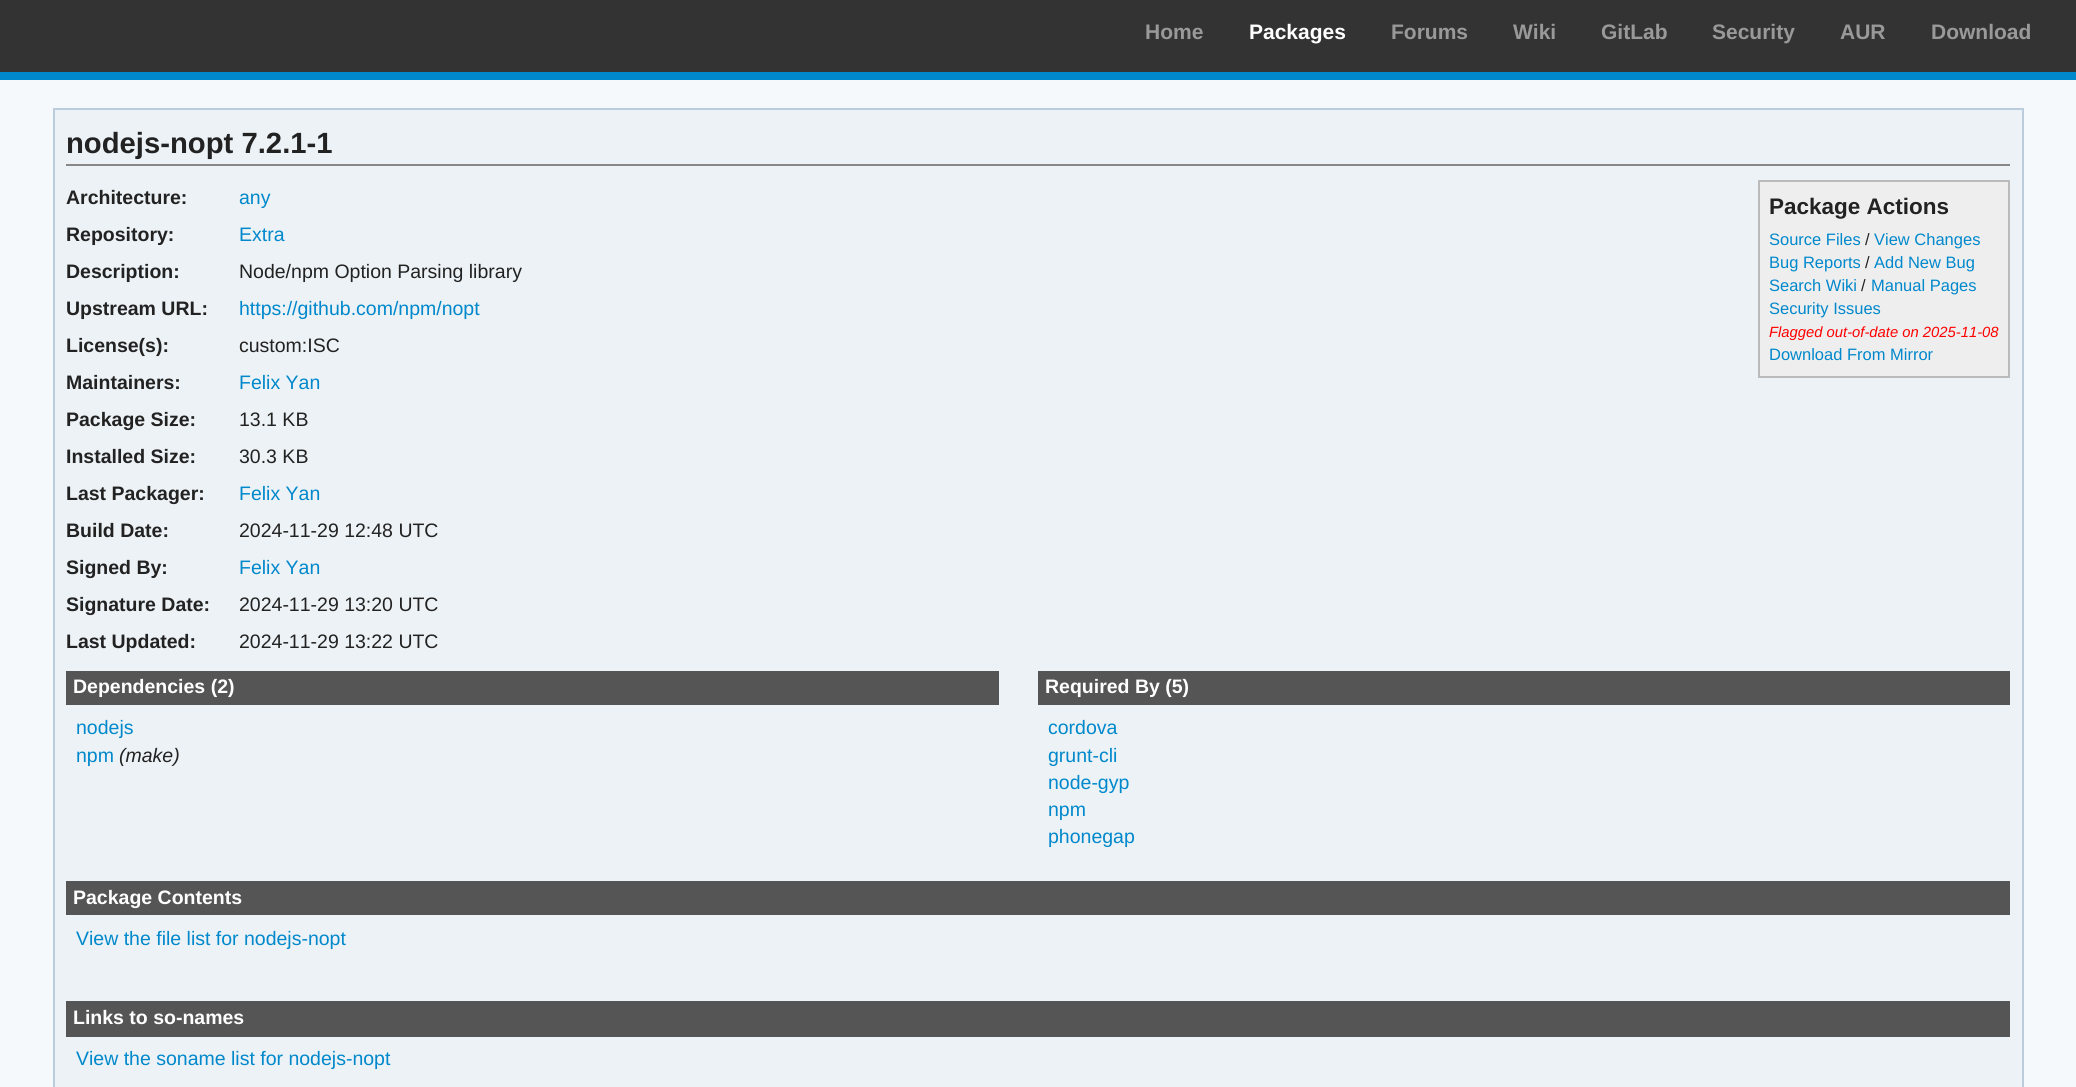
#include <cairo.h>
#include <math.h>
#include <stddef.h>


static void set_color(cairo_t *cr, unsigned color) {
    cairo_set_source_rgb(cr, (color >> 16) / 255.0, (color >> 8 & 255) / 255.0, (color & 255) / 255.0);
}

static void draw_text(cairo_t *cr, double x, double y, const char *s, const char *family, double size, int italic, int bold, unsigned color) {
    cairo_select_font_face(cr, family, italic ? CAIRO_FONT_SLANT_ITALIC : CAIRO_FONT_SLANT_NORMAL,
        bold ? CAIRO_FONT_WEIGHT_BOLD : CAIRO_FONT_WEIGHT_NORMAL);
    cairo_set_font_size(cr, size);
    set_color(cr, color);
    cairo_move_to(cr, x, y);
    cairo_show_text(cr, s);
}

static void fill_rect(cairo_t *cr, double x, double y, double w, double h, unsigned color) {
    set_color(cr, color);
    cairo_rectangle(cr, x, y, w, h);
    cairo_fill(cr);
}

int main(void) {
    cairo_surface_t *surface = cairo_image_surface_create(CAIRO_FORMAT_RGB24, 2076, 1087);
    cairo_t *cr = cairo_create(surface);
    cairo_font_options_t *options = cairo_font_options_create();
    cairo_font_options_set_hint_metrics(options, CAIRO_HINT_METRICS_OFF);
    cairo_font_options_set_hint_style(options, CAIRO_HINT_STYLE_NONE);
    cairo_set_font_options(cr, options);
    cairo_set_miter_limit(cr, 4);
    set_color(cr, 0xF6F9FC);
    cairo_paint(cr);
    fill_rect(cr, 0, 0, 2076, 72, 0x333333);
    fill_rect(cr, 0, 72, 2076, 8, 0x0088CC);
    draw_text(cr, 1145, 39, "Home", "Liberation Sans", 21, 0, 1, 0x999999);
    draw_text(cr, 1249, 39, "Packages", "Liberation Sans", 21, 0, 1, 0xFFFFFF);
    draw_text(cr, 1391, 39, "Forums", "Liberation Sans", 21, 0, 1, 0x999999);
    draw_text(cr, 1513, 39, "Wiki", "Liberation Sans", 21, 0, 1, 0x999999);
    draw_text(cr, 1601, 39, "GitLab", "Liberation Sans", 21, 0, 1, 0x999999);
    draw_text(cr, 1712, 39, "Security", "Liberation Sans", 21, 0, 1, 0x999999);
    draw_text(cr, 1840, 39, "AUR", "Liberation Sans", 21, 0, 1, 0x999999);
    draw_text(cr, 1931, 39, "Download", "Liberation Sans", 21, 0, 1, 0x999999);
    set_color(cr, 0xECF2F5);
    cairo_rectangle(cr, 54, 109, 1969, 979);
    cairo_fill_preserve(cr);
    set_color(cr, 0xBBCCDD);
    cairo_stroke(cr);
    fill_rect(cr, 66, 164, 1944, 2, 0x888888);
    draw_text(cr, 66, 153, "nodejs-nopt 7.2.1-1", "Liberation Sans", 29.25, 0, 1, 0x222222);
    draw_text(cr, 66, 204, "Architecture:", "Liberation Sans", 19.5, 0, 1, 0x222222);
    draw_text(cr, 239, 204, "any", "Liberation Sans", 19.5, 0, 0, 0x0088CC);
    draw_text(cr, 66, 241, "Repository:", "Liberation Sans", 19.5, 0, 1, 0x222222);
    draw_text(cr, 239, 241, "Extra", "Liberation Sans", 19.5, 0, 0, 0x0088CC);
    draw_text(cr, 66, 278, "Description:", "Liberation Sans", 19.5, 0, 1, 0x222222);
    draw_text(cr, 239, 278, "Node/npm Option Parsing library", "Liberation Sans", 19.5, 0, 0, 0x222222);
    draw_text(cr, 66, 315, "Upstream URL:", "Liberation Sans", 19.5, 0, 1, 0x222222);
    draw_text(cr, 239, 315, "https://github.com/npm/nopt", "Liberation Sans", 19.5, 0, 0, 0x0088CC);
    draw_text(cr, 66, 352, "License(s):", "Liberation Sans", 19.5, 0, 1, 0x222222);
    draw_text(cr, 239, 352, "custom:ISC", "Liberation Sans", 19.5, 0, 0, 0x222222);
    draw_text(cr, 66, 389, "Maintainers:", "Liberation Sans", 19.5, 0, 1, 0x222222);
    draw_text(cr, 239, 389, "Felix Yan", "Liberation Sans", 19.5, 0, 0, 0x0088CC);
    draw_text(cr, 66, 426, "Package Size:", "Liberation Sans", 19.5, 0, 1, 0x222222);
    draw_text(cr, 239, 426, "13.1 KB", "Liberation Sans", 19.5, 0, 0, 0x222222);
    draw_text(cr, 66, 463, "Installed Size:", "Liberation Sans", 19.5, 0, 1, 0x222222);
    draw_text(cr, 239, 463, "30.3 KB", "Liberation Sans", 19.5, 0, 0, 0x222222);
    draw_text(cr, 66, 500, "Last Packager:", "Liberation Sans", 19.5, 0, 1, 0x222222);
    draw_text(cr, 239, 500, "Felix Yan", "Liberation Sans", 19.5, 0, 0, 0x0088CC);
    draw_text(cr, 66, 537, "Build Date:", "Liberation Sans", 19.5, 0, 1, 0x222222);
    draw_text(cr, 239, 537, "2024-11-29 12:48 UTC", "Liberation Sans", 19.5, 0, 0, 0x222222);
    draw_text(cr, 66, 574, "Signed By:", "Liberation Sans", 19.5, 0, 1, 0x222222);
    draw_text(cr, 239, 574, "Felix Yan", "Liberation Sans", 19.5, 0, 0, 0x0088CC);
    draw_text(cr, 66, 611, "Signature Date:", "Liberation Sans", 19.5, 0, 1, 0x222222);
    draw_text(cr, 239, 611, "2024-11-29 13:20 UTC", "Liberation Sans", 19.5, 0, 0, 0x222222);
    draw_text(cr, 66, 648, "Last Updated:", "Liberation Sans", 19.5, 0, 1, 0x222222);
    draw_text(cr, 239, 648, "2024-11-29 13:22 UTC", "Liberation Sans", 19.5, 0, 0, 0x222222);
    set_color(cr, 0xEEEEEE);
    cairo_rectangle(cr, 1759, 181, 250, 196);
    cairo_fill_preserve(cr);
    set_color(cr, 0xBBBBBB);
    cairo_stroke(cr);
    draw_text(cr, 1769, 214, "Package Actions", "Liberation Sans", 22.5, 0, 1, 0x222222);
    draw_text(cr, 1769, 245, "Source Files", "Liberation Sans", 16.5, 0, 0, 0x0088CC);
    draw_text(cr, 1865, 245, "/", "Liberation Sans", 16.5, 0, 0, 0x222222);
    draw_text(cr, 1874, 245, "View Changes", "Liberation Sans", 16.5, 0, 0, 0x0088CC);
    draw_text(cr, 1769, 268, "Bug Reports", "Liberation Sans", 16.5, 0, 0, 0x0088CC);
    draw_text(cr, 1865, 268, "/", "Liberation Sans", 16.5, 0, 0, 0x222222);
    draw_text(cr, 1874, 268, "Add New Bug", "Liberation Sans", 16.5, 0, 0, 0x0088CC);
    draw_text(cr, 1769, 291, "Search Wiki", "Liberation Sans", 16.5, 0, 0, 0x0088CC);
    draw_text(cr, 1861, 291, "/", "Liberation Sans", 16.5, 0, 0, 0x222222);
    draw_text(cr, 1871, 291, "Manual Pages", "Liberation Sans", 16.5, 0, 0, 0x0088CC);
    draw_text(cr, 1769, 314, "Security Issues", "Liberation Sans", 16.5, 0, 0, 0x0088CC);
    draw_text(cr, 1769, 337, "Flagged out-of-date on 2025-11-08", "Liberation Sans", 14.8, 1, 0, 0xFF0000);
    draw_text(cr, 1769, 360, "Download From Mirror", "Liberation Sans", 16.5, 0, 0, 0x0088CC);
    fill_rect(cr, 66, 671, 933, 34, 0x555555);
    draw_text(cr, 73, 693, "Dependencies (2)", "Liberation Sans", 19.5, 0, 1, 0xFFFFFF);
    draw_text(cr, 76, 734, "nodejs", "Liberation Sans", 19.5, 0, 0, 0x0088CC);
    draw_text(cr, 76, 762, "npm", "Liberation Sans", 19.5, 0, 0, 0x0088CC);
    draw_text(cr, 119, 762, "(make)", "Liberation Sans", 19.5, 1, 0, 0x222222);
    fill_rect(cr, 1038, 671, 972, 34, 0x555555);
    draw_text(cr, 1045, 693, "Required By (5)", "Liberation Sans", 19.5, 0, 1, 0xFFFFFF);
    draw_text(cr, 1048, 734, "cordova", "Liberation Sans", 19.5, 0, 0, 0x0088CC);
    draw_text(cr, 1048, 762, "grunt-cli", "Liberation Sans", 19.5, 0, 0, 0x0088CC);
    draw_text(cr, 1048, 789, "node-gyp", "Liberation Sans", 19.5, 0, 0, 0x0088CC);
    draw_text(cr, 1048, 816, "npm", "Liberation Sans", 19.5, 0, 0, 0x0088CC);
    draw_text(cr, 1048, 843, "phonegap", "Liberation Sans", 19.5, 0, 0, 0x0088CC);
    fill_rect(cr, 66, 881, 1944, 34, 0x555555);
    draw_text(cr, 73, 904, "Package Contents", "Liberation Sans", 19.5, 0, 1, 0xFFFFFF);
    draw_text(cr, 76, 945, "View the file list for nodejs-nopt", "Liberation Sans", 19.5, 0, 0, 0x0088CC);
    fill_rect(cr, 66, 1001, 1944, 36, 0x555555);
    draw_text(cr, 73, 1024, "Links to so-names", "Liberation Sans", 19.5, 0, 1, 0xFFFFFF);
    draw_text(cr, 76, 1065, "View the soname list for nodejs-nopt", "Liberation Sans", 19.5, 0, 0, 0x0088CC);
    cairo_surface_write_to_png(surface, "output.png");
    cairo_font_options_destroy(options);
    cairo_destroy(cr);
    cairo_surface_destroy(surface);
    return 0;
}
